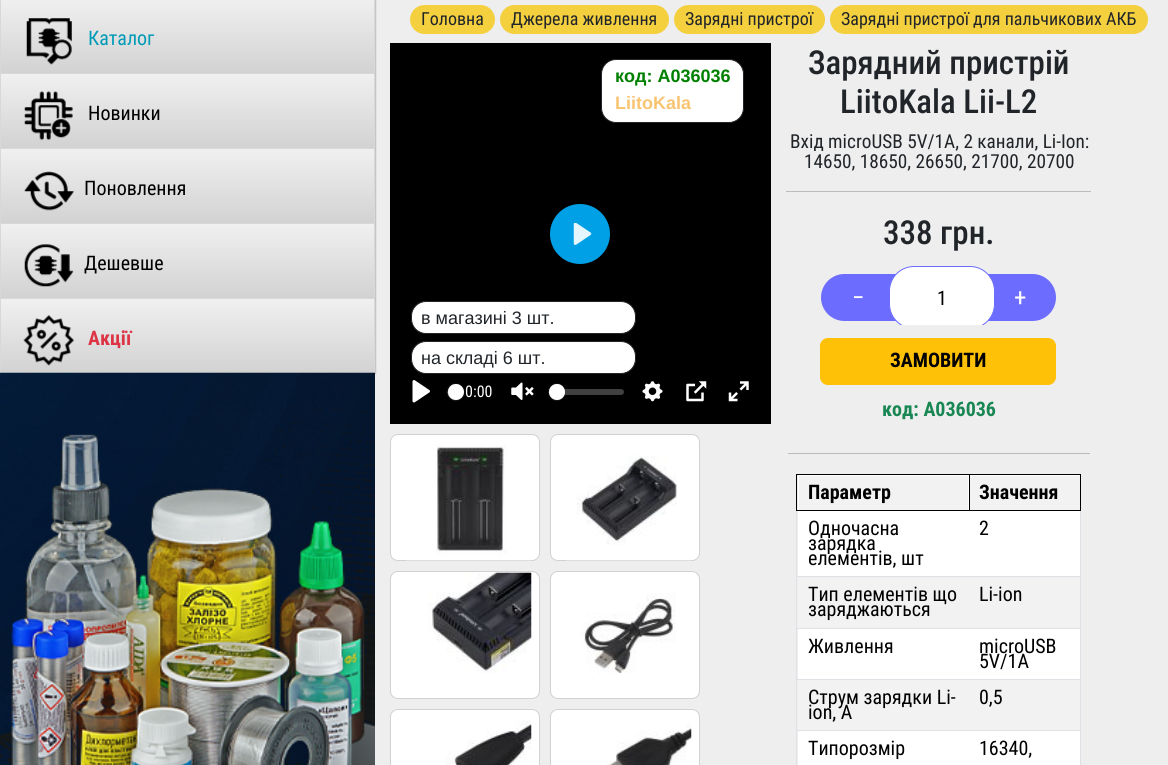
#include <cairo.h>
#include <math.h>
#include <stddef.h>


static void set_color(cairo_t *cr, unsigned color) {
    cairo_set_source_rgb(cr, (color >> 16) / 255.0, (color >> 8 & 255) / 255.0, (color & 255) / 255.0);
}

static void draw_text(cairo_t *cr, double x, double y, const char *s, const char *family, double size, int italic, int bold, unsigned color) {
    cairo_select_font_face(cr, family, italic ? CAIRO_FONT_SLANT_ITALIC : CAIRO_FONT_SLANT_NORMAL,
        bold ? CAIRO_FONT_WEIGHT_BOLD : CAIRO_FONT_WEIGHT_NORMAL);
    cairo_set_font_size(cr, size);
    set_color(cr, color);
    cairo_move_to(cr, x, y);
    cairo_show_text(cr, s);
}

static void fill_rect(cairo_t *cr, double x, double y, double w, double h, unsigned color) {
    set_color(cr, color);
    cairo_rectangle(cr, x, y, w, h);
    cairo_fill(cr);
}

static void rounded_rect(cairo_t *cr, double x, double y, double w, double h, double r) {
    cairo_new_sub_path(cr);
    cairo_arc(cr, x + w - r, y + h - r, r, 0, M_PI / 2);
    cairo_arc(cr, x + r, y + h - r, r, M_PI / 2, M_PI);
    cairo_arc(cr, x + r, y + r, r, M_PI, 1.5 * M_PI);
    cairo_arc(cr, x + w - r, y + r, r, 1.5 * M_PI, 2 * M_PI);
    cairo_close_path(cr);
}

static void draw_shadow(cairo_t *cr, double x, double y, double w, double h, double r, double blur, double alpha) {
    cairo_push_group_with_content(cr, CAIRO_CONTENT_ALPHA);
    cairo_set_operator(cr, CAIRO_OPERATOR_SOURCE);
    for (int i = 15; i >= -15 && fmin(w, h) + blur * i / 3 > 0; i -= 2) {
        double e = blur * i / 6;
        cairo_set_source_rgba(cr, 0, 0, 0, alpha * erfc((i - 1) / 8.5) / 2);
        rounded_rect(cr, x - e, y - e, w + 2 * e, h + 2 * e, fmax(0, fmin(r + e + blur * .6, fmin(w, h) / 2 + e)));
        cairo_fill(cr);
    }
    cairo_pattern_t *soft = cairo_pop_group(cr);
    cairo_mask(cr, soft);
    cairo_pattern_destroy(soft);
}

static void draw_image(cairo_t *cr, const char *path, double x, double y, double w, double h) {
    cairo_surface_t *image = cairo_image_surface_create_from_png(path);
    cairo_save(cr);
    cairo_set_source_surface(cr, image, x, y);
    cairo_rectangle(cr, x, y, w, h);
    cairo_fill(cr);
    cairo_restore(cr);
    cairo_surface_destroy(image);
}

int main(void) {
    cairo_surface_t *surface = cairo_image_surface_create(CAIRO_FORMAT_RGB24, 1168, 765);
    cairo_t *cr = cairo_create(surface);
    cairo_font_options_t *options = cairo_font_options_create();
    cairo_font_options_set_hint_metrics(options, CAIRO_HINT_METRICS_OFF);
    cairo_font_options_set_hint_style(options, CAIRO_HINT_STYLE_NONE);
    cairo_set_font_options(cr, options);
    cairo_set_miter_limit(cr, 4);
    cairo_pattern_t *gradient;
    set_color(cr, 0xEEEEEE);
    cairo_paint(cr);
    set_color(cr, 0x000000);
    draw_shadow(cr, 1, -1, 375, 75, 0, 0.5, 0.2);
    gradient = cairo_pattern_create_linear(188, -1.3, 188, 81);
    cairo_pattern_add_color_stop_rgba(gradient, 0, 0.941, 0.941, 0.941, 1);
    cairo_pattern_add_color_stop_rgba(gradient, 1, 0.812, 0.812, 0.812, 1);
    cairo_set_source(cr, gradient);
    cairo_pattern_destroy(gradient);
    cairo_rectangle(cr, 1, 0, 373, 73);
    cairo_fill(cr);
    cairo_rectangle(cr, 0.5, -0.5, 374, 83);
    set_color(cr, 0xD8D8D8);
    cairo_set_line_width(cr, 1);
    cairo_stroke(cr);
    draw_image(cr, "assets/img1.png", 26, 18, 46, 47);
    draw_text(cr, 88, 45, "Каталог", "Roboto Condensed", 20, 0, 0, 0x019AB7);
    set_color(cr, 0x000000);
    draw_shadow(cr, 1, 74, 375, 75, 0, 0.5, 0.2);
    gradient = cairo_pattern_create_linear(188, 74, 188, 156);
    cairo_pattern_add_color_stop_rgba(gradient, 0, 0.941, 0.941, 0.941, 1);
    cairo_pattern_add_color_stop_rgba(gradient, 1, 0.812, 0.812, 0.812, 1);
    cairo_set_source(cr, gradient);
    cairo_pattern_destroy(gradient);
    cairo_rectangle(cr, 1, 74, 373, 74);
    cairo_fill(cr);
    cairo_rectangle(cr, 0.5, 73.5, 374, 84);
    set_color(cr, 0xD8D8D8);
    cairo_stroke(cr);
    draw_image(cr, "assets/img2.png", 24, 91, 49, 50);
    draw_text(cr, 88, 120, "Новинки", "Roboto Condensed", 20, 0, 0, 0x000000);
    set_color(cr, 0x000000);
    draw_shadow(cr, 1, 149, 375, 75, 0, 0.5, 0.2);
    gradient = cairo_pattern_create_linear(188, 149, 188, 231);
    cairo_pattern_add_color_stop_rgba(gradient, 0, 0.941, 0.941, 0.941, 1);
    cairo_pattern_add_color_stop_rgba(gradient, 1, 0.812, 0.812, 0.812, 1);
    cairo_set_source(cr, gradient);
    cairo_pattern_destroy(gradient);
    cairo_rectangle(cr, 1, 149, 373, 74);
    cairo_fill(cr);
    cairo_rectangle(cr, 0.5, 148.5, 374, 84);
    set_color(cr, 0xD8D8D8);
    cairo_stroke(cr);
    draw_image(cr, "assets/img3.png", 24, 171, 50, 40);
    draw_text(cr, 84, 195, "Поновлення", "Roboto Condensed", 20, 0, 0, 0x000000);
    set_color(cr, 0x000000);
    draw_shadow(cr, 1, 224, 375, 75, 0, 0.5, 0.2);
    gradient = cairo_pattern_create_linear(188, 224, 188, 306);
    cairo_pattern_add_color_stop_rgba(gradient, 0, 0.941, 0.941, 0.941, 1);
    cairo_pattern_add_color_stop_rgba(gradient, 1, 0.812, 0.812, 0.812, 1);
    cairo_set_source(cr, gradient);
    cairo_pattern_destroy(gradient);
    cairo_rectangle(cr, 1, 224, 373, 74);
    cairo_fill(cr);
    cairo_rectangle(cr, 0.5, 223.5, 374, 84);
    set_color(cr, 0xD8D8D8);
    cairo_stroke(cr);
    draw_image(cr, "assets/img4.png", 24, 244, 50, 43);
    draw_text(cr, 84, 270, "Дешевше", "Roboto Condensed", 20, 0, 0, 0x000000);
    set_color(cr, 0x000000);
    draw_shadow(cr, 1, 299, 375, 75, 0, 0.5, 0.2);
    gradient = cairo_pattern_create_linear(188, 299, 188, 381);
    cairo_pattern_add_color_stop_rgba(gradient, 0, 0.941, 0.941, 0.941, 1);
    cairo_pattern_add_color_stop_rgba(gradient, 1, 0.812, 0.812, 0.812, 1);
    cairo_set_source(cr, gradient);
    cairo_pattern_destroy(gradient);
    cairo_rectangle(cr, 1, 299, 373, 74);
    cairo_fill(cr);
    cairo_rectangle(cr, 0.5, 298.5, 374, 84);
    set_color(cr, 0xD8D8D8);
    cairo_stroke(cr);
    draw_image(cr, "assets/img5.png", 23, 315, 51, 51);
    draw_text(cr, 88, 345, "Акції", "Roboto Condensed", 20, 0, 1, 0xDC3545);
    draw_image(cr, "assets/img6.png", 0, 372, 375, 393);
    set_color(cr, 0xF4D03F);
    rounded_rect(cr, 410, 5, 85, 29, 14.5);
    cairo_fill(cr);
    draw_text(cr, 421, 25, "Головна", "Roboto Condensed", 18, 0, 0, 0x212529);
    set_color(cr, 0xF4D03F);
    rounded_rect(cr, 500, 5, 169, 29, 14.5);
    cairo_fill(cr);
    draw_text(cr, 511, 25, "Джерела живлення", "Roboto Condensed", 18, 0, 0, 0x212529);
    set_color(cr, 0xF4D03F);
    rounded_rect(cr, 674, 5, 151, 29, 14.5);
    cairo_fill(cr);
    draw_text(cr, 685, 25, "Зарядні пристрої", "Roboto Condensed", 18, 0, 0, 0x212529);
    set_color(cr, 0xF4D03F);
    rounded_rect(cr, 830, 5, 318, 29, 14.5);
    cairo_fill(cr);
    draw_text(cr, 841, 25, "Зарядні пристрої для пальчикових АКБ", "Roboto Condensed", 18, 0, 0, 0x212529);
    fill_rect(cr, 390, 43, 381, 381, 0x000000);
    set_color(cr, 0xFFFFFF);
    rounded_rect(cr, 601.5, 59.5, 142, 63, 14.5);
    cairo_fill_preserve(cr);
    set_color(cr, 0x212529);
    cairo_stroke(cr);
    draw_text(cr, 615, 82, "код: A036036", "Liberation Sans", 18, 0, 1, 0x008000);
    draw_text(cr, 615, 109, "LiitoKala", "Liberation Sans", 18, 0, 1, 0xF8C471);
    set_color(cr, 0xFFFFFF);
    rounded_rect(cr, 411.5, 301.5, 224, 32, 14.5);
    cairo_fill_preserve(cr);
    set_color(cr, 0x212529);
    cairo_stroke(cr);
    draw_text(cr, 421, 324, "в магазині 3 шт.", "Liberation Sans", 18, 0, 0, 0x212529);
    set_color(cr, 0xFFFFFF);
    rounded_rect(cr, 411.5, 341.5, 224, 32, 14.5);
    cairo_fill_preserve(cr);
    set_color(cr, 0x212529);
    cairo_stroke(cr);
    draw_text(cr, 421, 364, "на складі 6 шт.", "Liberation Sans", 18, 0, 0, 0x212529);
    draw_image(cr, "assets/img7.png", 446, 383, 120, 19);
    set_color(cr, 0x00A0E6);
    cairo_arc(cr, 580, 234, 30, 0, 2 * M_PI);
    cairo_fill(cr);
    draw_image(cr, "assets/img8.png", 573, 223, 19, 22);
    gradient = cairo_pattern_create_linear(581, 328, 581, 424);
    cairo_pattern_add_color_stop_rgba(gradient, 0, 0, 0, 0, 0);
    cairo_pattern_add_color_stop_rgba(gradient, 1, 0, 0, 0, 0.75);
    cairo_set_source(cr, gradient);
    cairo_pattern_destroy(gradient);
    cairo_rectangle(cr, 446, 383, 120, 19);
    cairo_fill(cr);
    draw_image(cr, "assets/img9.png", 412, 380, 18, 23);
    rounded_rect(cr, 446.5, 383.5, 18, 17, 8.5);
    cairo_set_source_rgba(cr, 0.137, 0.157, 0.184, 0.2);
    cairo_stroke(cr);
    set_color(cr, 0x23282F);
    draw_shadow(cr, 448, 385, 16, 16, 8, 0.5, 0.15);
    set_color(cr, 0xFFFFFF);
    cairo_arc(cr, 456, 392, 8, 0, 2 * M_PI);
    cairo_fill(cr);
    draw_text(cr, 465, 397, "0:00", "Roboto Condensed", 16, 0, 0, 0xFFFFFF);
    draw_image(cr, "assets/img10.png", 511, 382, 23, 18);
    cairo_set_source_rgba(cr, 1, 1, 1, 0.25);
    rounded_rect(cr, 549, 389, 75, 6, 3);
    cairo_fill(cr);
    cairo_arc(cr, 557, 392, 8.5, 0, 2 * M_PI);
    cairo_set_source_rgba(cr, 0.137, 0.157, 0.184, 0.2);
    cairo_stroke(cr);
    set_color(cr, 0x23282F);
    draw_shadow(cr, 549, 385, 16, 16, 8, 0.5, 0.15);
    set_color(cr, 0xFFFFFF);
    cairo_arc(cr, 557, 392, 8, 0, 2 * M_PI);
    cairo_fill(cr);
    draw_image(cr, "assets/img11.png", 642, 381, 21, 21);
    draw_image(cr, "assets/img12.png", 686, 381, 21, 21);
    draw_image(cr, "assets/img13.png", 728, 381, 21, 21);
    rounded_rect(cr, 390, 434, 150, 127, 8);
    cairo_fill(cr);
    rounded_rect(cr, 390.5, 434.5, 149, 126, 7.5);
    cairo_set_source_rgba(cr, 0, 0, 0, 0.18);
    cairo_stroke(cr);
    draw_image(cr, "assets/img14.png", 406, 445, 125, 116);
    set_color(cr, 0xFFFFFF);
    rounded_rect(cr, 550, 434, 150, 127, 8);
    cairo_fill(cr);
    rounded_rect(cr, 550.5, 434.5, 149, 126, 7.5);
    cairo_set_source_rgba(cr, 0, 0, 0, 0.18);
    cairo_stroke(cr);
    draw_image(cr, "assets/img15.png", 566, 455, 125, 106);
    set_color(cr, 0xFFFFFF);
    rounded_rect(cr, 390, 571, 150, 128, 8);
    cairo_fill(cr);
    rounded_rect(cr, 390.5, 571.5, 149, 127, 7.5);
    cairo_set_source_rgba(cr, 0, 0, 0, 0.18);
    cairo_stroke(cr);
    draw_image(cr, "assets/img16.png", 428, 572, 104, 101);
    set_color(cr, 0xFFFFFF);
    rounded_rect(cr, 550, 571, 150, 128, 8);
    cairo_fill(cr);
    rounded_rect(cr, 550.5, 571.5, 149, 127, 7.5);
    cairo_set_source_rgba(cr, 0, 0, 0, 0.18);
    cairo_stroke(cr);
    draw_image(cr, "assets/img17.png", 581, 593, 95, 80);
    set_color(cr, 0xFFFFFF);
    rounded_rect(cr, 390, 709, 150, 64, 8);
    cairo_fill(cr);
    rounded_rect(cr, 390.5, 709.5, 149, 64, 7.5);
    cairo_set_source_rgba(cr, 0, 0, 0, 0.18);
    cairo_stroke(cr);
    draw_image(cr, "assets/img18.png", 446, 720, 86, 45);
    set_color(cr, 0xFFFFFF);
    rounded_rect(cr, 550, 709, 150, 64, 8);
    cairo_fill(cr);
    rounded_rect(cr, 550.5, 709.5, 149, 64, 7.5);
    cairo_set_source_rgba(cr, 0, 0, 0, 0.18);
    cairo_stroke(cr);
    draw_image(cr, "assets/img19.png", 606, 724, 86, 41);
    draw_text(cr, 808, 74, "Зарядний пристрій", "Roboto Condensed Medium", 33, 0, 0, 0x212529);
    draw_text(cr, 840, 113, "LiitoKala Lii-L2", "Roboto Condensed Medium", 33, 0, 0, 0x212529);
    draw_text(cr, 790, 148, "Вхід microUSB 5V/1A, 2 канали, Li-Ion:", "Roboto Condensed", 19.25, 0, 0, 0x212529);
    draw_text(cr, 804, 168, "14650, 18650, 26650, 21700, 20700", "Roboto Condensed", 19.25, 0, 0, 0x212529);
    fill_rect(cr, 786, 191, 305, 1, 0xBBBCBD);
    draw_text(cr, 883, 244, "338 грн.", "Roboto Condensed Medium", 33, 0, 0, 0x212529);
    set_color(cr, 0x6C6DFF);
    cairo_new_path(cr);
    cairo_move_to(cr, 844.5, 274);
    cairo_line_to(cr, 936, 274);
    cairo_line_to(cr, 936, 321);
    cairo_line_to(cr, 844.5, 321);
    cairo_curve_to(cr, 831.5, 321, 821, 310.5, 821, 297.5);
    cairo_curve_to(cr, 821, 284.5, 831.5, 274, 844.5, 274);
    cairo_close_path(cr);
    cairo_fill(cr);
    draw_text(cr, 852, 306, "−", "Roboto Condensed", 25, 0, 0, 0xFFFFFF);
    set_color(cr, 0x6C6DFF);
    cairo_new_path(cr);
    cairo_move_to(cr, 941, 274);
    cairo_line_to(cr, 1032.5, 274);
    cairo_curve_to(cr, 1045.5, 274, 1056, 284.5, 1056, 297.5);
    cairo_curve_to(cr, 1056, 310.5, 1045.5, 321, 1032.5, 321);
    cairo_line_to(cr, 941, 321);
    cairo_close_path(cr);
    cairo_fill(cr);
    cairo_save(cr);
    cairo_rectangle(cr, 819, 263, 240, 62);
    cairo_clip(cr);
    set_color(cr, 0xFFFFFF);
    rounded_rect(cr, 889.5, 266.5, 105, 62, 24.5);
    cairo_fill_preserve(cr);
    set_color(cr, 0x6C6DFF);
    cairo_stroke(cr);
    cairo_restore(cr);
    draw_text(cr, 937, 305, "1", "Roboto Condensed", 20, 0, 0, 0x000000);
    draw_text(cr, 1014, 306, "+", "Roboto Condensed", 25, 0, 0, 0xFFFFFF);
    set_color(cr, 0xFFC107);
    rounded_rect(cr, 820.5, 338.5, 235, 46, 7.5);
    cairo_fill_preserve(cr);
    cairo_stroke(cr);
    draw_text(cr, 890, 367, "ЗАМОВИТИ", "Roboto Condensed", 20, 0, 1, 0x000000);
    draw_text(cr, 882, 416, "код: A036036", "Roboto Condensed", 20, 0, 1, 0x198754);
    fill_rect(cr, 788, 453, 302, 1, 0xBBBCBD);
    fill_rect(cr, 1080, 511, 1, 254, 0xDEE2E6);
    fill_rect(cr, 796, 511, 1, 254, 0xDEE2E6);
    fill_rect(cr, 798, 475, 171, 35, 0xFFFFFF);
    fill_rect(cr, 799, 476, 169, 34, 0xF2F2F2);
    fill_rect(cr, 969, 474, 112, 1, 0x000000);
    fill_rect(cr, 1080, 474, 1, 37, 0x000000);
    fill_rect(cr, 969, 510, 112, 1, 0x000000);
    fill_rect(cr, 969, 474, 1, 37, 0x000000);
    fill_rect(cr, 796, 474, 174, 1, 0x000000);
    fill_rect(cr, 796, 510, 174, 1, 0x000000);
    fill_rect(cr, 796, 474, 1, 37, 0x000000);
    draw_text(cr, 808, 499, "Параметр", "Roboto Condensed", 20, 0, 1, 0x000000);
    fill_rect(cr, 970, 475, 110, 1, 0xFFFFFF);
    fill_rect(cr, 970, 476, 110, 34, 0xF2F2F2);
    draw_text(cr, 979, 499, "Значення", "Roboto Condensed", 20, 0, 1, 0x000000);
    fill_rect(cr, 798, 511, 282, 65, 0xFFFFFF);
    draw_text(cr, 808, 535, "Одночасна", "Roboto Condensed", 20, 0, 0, 0x000000);
    draw_text(cr, 808, 550, "зарядка", "Roboto Condensed", 20, 0, 0, 0x000000);
    draw_text(cr, 808, 565, "елементів, шт", "Roboto Condensed", 20, 0, 0, 0x000000);
    fill_rect(cr, 796, 576, 285, 1, 0xDEE2E6);
    draw_text(cr, 979, 535, "2", "Roboto Condensed", 20, 0, 0, 0x000000);
    fill_rect(cr, 798, 578, 282, 50, 0xF2F2F2);
    draw_text(cr, 808, 601, "Тип елементів що", "Roboto Condensed", 20, 0, 0, 0x000000);
    draw_text(cr, 808, 616, "заряджаються", "Roboto Condensed", 20, 0, 0, 0x000000);
    fill_rect(cr, 796, 628, 285, 1, 0xDEE2E6);
    draw_text(cr, 979, 601, "Li-ion", "Roboto Condensed", 20, 0, 0, 0x000000);
    fill_rect(cr, 798, 629, 282, 50, 0xFFFFFF);
    draw_text(cr, 808, 653, "Живлення", "Roboto Condensed", 20, 0, 0, 0x000000);
    fill_rect(cr, 796, 679, 285, 1, 0xDEE2E6);
    draw_text(cr, 979, 653, "microUSB", "Roboto Condensed", 20, 0, 0, 0x000000);
    draw_text(cr, 979, 668, "5V/1A", "Roboto Condensed", 20, 0, 0, 0x000000);
    fill_rect(cr, 798, 680, 282, 50, 0xF2F2F2);
    draw_text(cr, 808, 704, "Струм зарядки Li-", "Roboto Condensed", 20, 0, 0, 0x000000);
    draw_text(cr, 808, 719, "ion, A", "Roboto Condensed", 20, 0, 0, 0x000000);
    fill_rect(cr, 796, 730, 285, 1, 0xDEE2E6);
    draw_text(cr, 979, 704, "0,5", "Roboto Condensed", 20, 0, 0, 0x000000);
    fill_rect(cr, 798, 731, 282, 34, 0xFFFFFF);
    draw_text(cr, 808, 755, "Типорозмір", "Roboto Condensed", 20, 0, 0, 0x000000);
    draw_text(cr, 979, 755, "16340,", "Roboto Condensed", 20, 0, 0, 0x000000);
    cairo_surface_write_to_png(surface, "output.png");
    cairo_font_options_destroy(options);
    cairo_destroy(cr);
    cairo_surface_destroy(surface);
    return 0;
}
